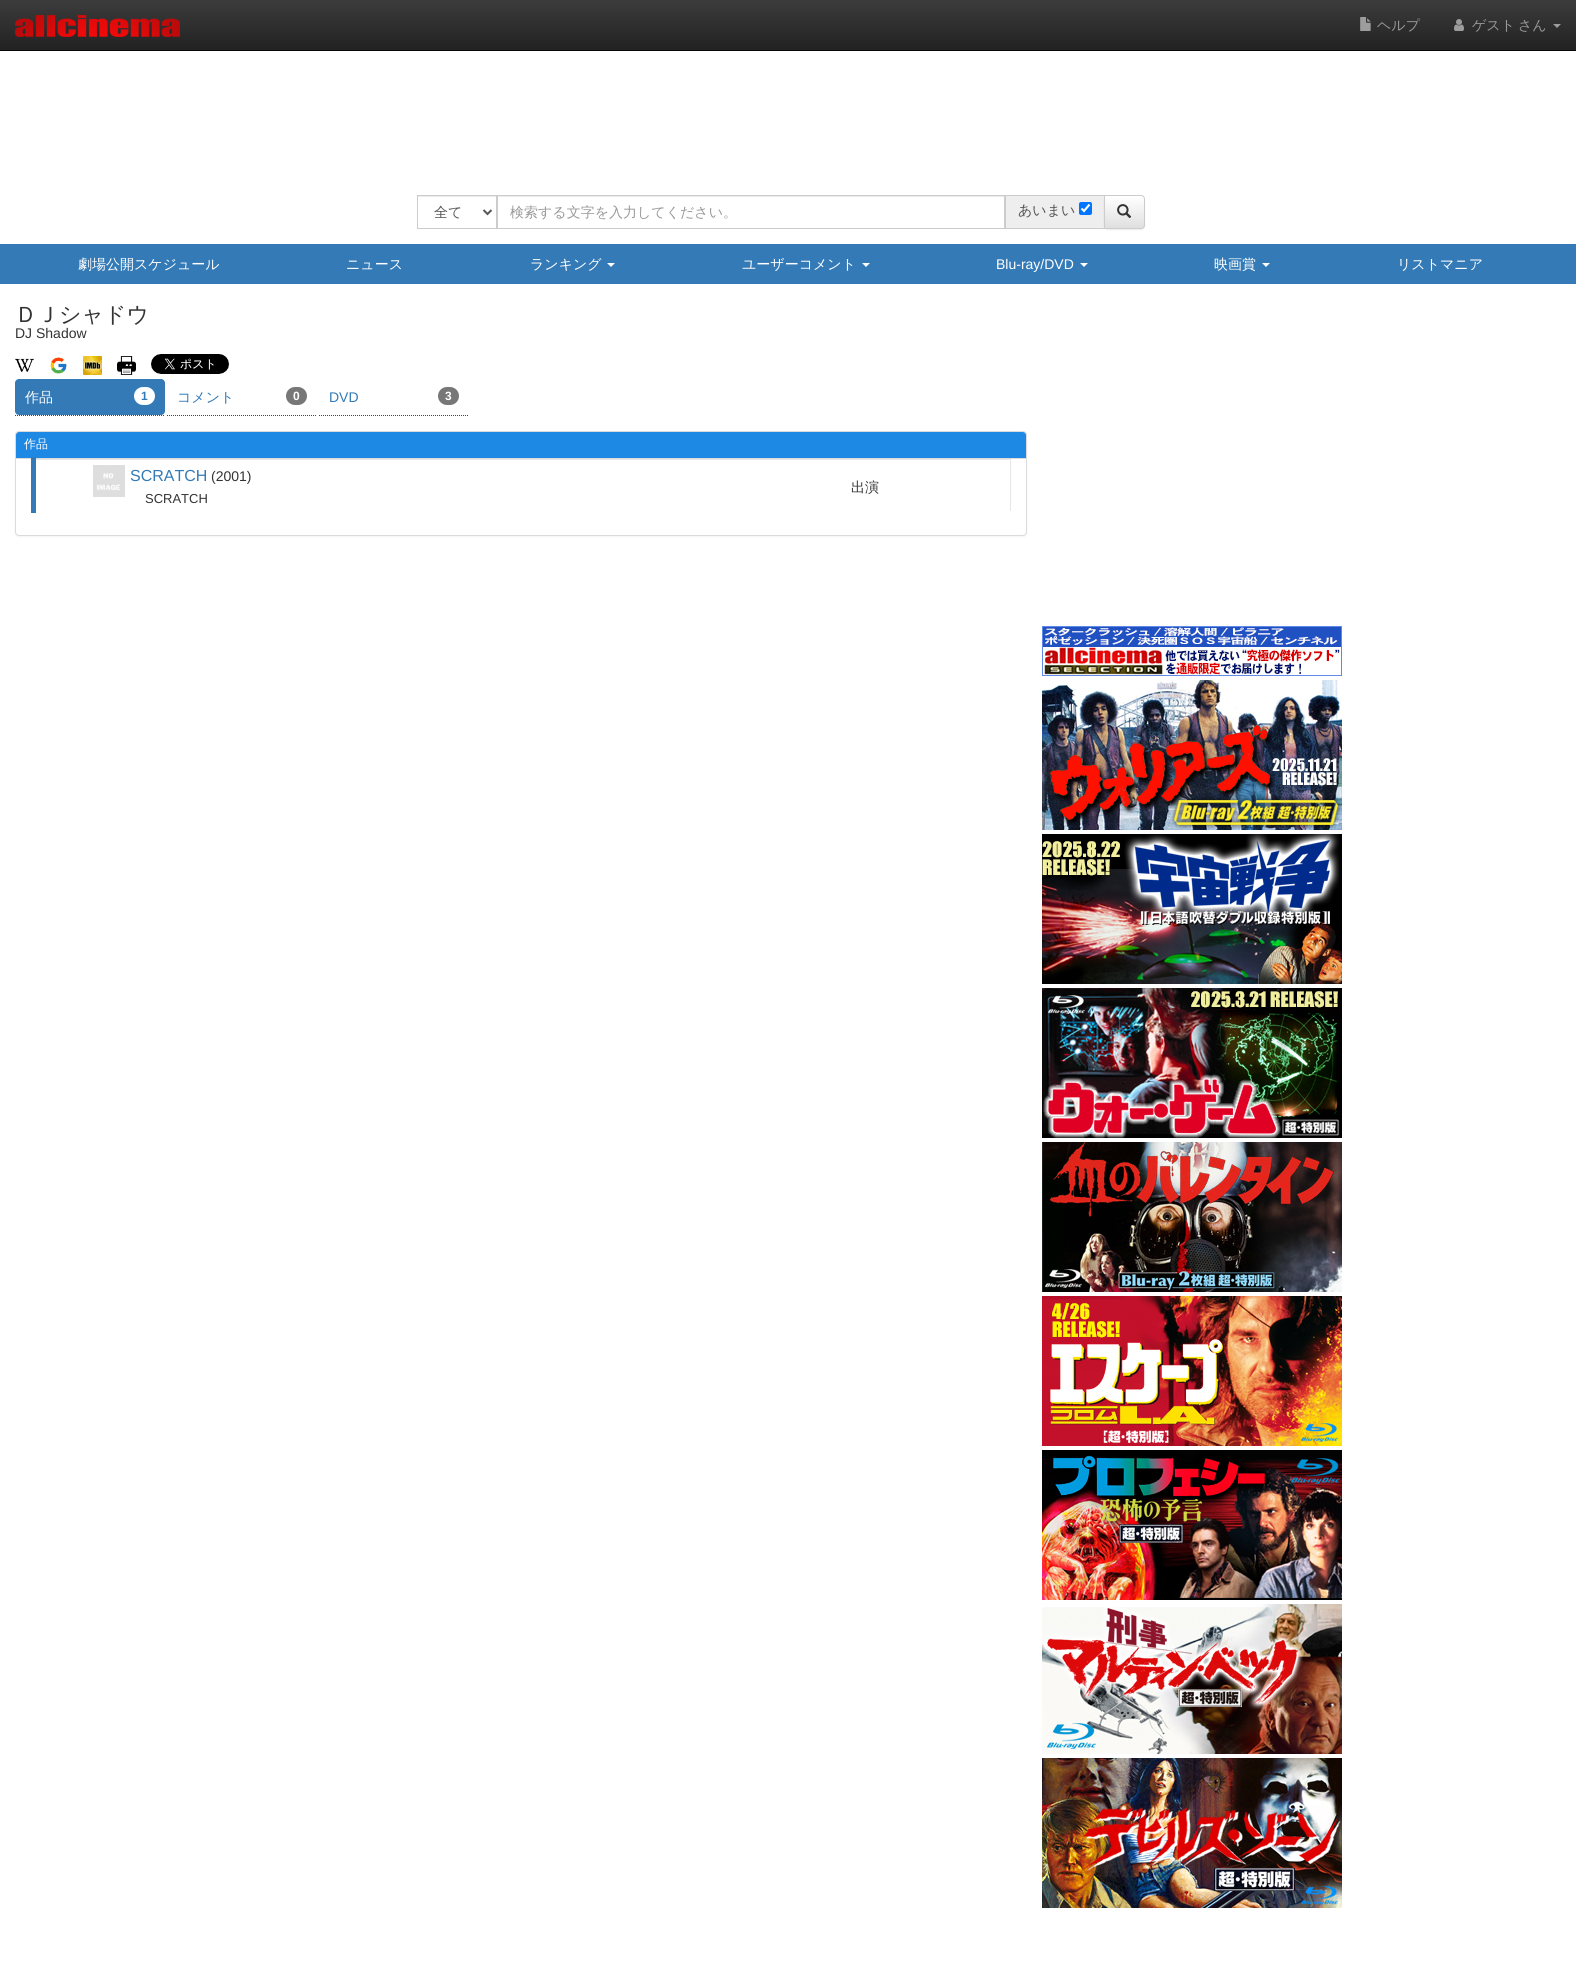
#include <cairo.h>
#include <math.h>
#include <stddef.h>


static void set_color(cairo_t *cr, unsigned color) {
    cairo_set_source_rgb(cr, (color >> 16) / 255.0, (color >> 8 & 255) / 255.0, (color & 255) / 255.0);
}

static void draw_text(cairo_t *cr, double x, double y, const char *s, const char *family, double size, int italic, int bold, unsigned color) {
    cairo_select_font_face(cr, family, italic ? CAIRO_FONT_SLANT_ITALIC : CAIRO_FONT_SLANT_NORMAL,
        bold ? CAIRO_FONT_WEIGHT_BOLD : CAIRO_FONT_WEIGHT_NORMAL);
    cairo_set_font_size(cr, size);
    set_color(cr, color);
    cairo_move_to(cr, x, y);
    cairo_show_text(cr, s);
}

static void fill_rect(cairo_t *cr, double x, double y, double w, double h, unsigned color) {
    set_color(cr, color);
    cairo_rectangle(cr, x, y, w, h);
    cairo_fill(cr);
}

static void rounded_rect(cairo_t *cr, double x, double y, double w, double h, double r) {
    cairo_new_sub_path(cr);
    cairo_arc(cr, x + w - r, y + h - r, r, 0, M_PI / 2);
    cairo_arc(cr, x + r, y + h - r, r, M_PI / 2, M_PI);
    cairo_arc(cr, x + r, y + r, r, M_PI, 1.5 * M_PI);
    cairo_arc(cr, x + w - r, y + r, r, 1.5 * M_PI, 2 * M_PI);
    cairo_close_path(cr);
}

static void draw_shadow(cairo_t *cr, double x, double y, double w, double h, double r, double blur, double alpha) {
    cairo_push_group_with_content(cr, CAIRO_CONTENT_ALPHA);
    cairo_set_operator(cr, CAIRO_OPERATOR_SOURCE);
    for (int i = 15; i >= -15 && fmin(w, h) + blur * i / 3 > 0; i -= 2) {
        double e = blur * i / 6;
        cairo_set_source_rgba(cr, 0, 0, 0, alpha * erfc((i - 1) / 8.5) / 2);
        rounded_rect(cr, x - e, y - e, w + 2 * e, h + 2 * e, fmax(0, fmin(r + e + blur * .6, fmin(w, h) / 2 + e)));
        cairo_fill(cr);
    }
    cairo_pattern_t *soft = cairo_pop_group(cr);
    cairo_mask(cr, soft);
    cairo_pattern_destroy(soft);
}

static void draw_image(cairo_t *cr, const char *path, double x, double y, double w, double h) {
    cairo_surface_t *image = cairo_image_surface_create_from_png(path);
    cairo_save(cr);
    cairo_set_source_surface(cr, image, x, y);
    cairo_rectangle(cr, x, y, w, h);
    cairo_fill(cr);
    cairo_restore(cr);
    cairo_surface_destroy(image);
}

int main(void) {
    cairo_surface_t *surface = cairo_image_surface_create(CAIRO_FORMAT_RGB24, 1576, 1971);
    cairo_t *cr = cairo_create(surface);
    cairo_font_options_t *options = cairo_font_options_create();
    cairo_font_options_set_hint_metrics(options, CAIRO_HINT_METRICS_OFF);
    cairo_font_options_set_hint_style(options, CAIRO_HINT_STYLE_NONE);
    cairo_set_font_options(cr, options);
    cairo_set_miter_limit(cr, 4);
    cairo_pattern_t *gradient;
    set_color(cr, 0xFFFFFF);
    cairo_paint(cr);
    gradient = cairo_pattern_create_linear(788, 0, 788, 50);
    cairo_pattern_add_color_stop_rgba(gradient, 0, 0.235, 0.235, 0.235, 1);
    cairo_pattern_add_color_stop_rgba(gradient, 1, 0.133, 0.133, 0.133, 1);
    cairo_set_source(cr, gradient);
    cairo_pattern_destroy(gradient);
    cairo_rectangle(cr, 0, 0, 1576, 50);
    cairo_fill(cr);
    fill_rect(cr, 0, 50, 1576, 1, 0x080808);
    draw_image(cr, "assets/img1.png", 15, 15, 165, 22);
    draw_image(cr, "assets/img2.png", 1360, 17, 11, 14);
    draw_text(cr, 1377, 30, "ヘルプ", "WenQuanYi Zen Hei Medium", 14, 0, 0, 0x999999);
    draw_image(cr, "assets/img3.png", 1454, 19, 10, 12);
    draw_text(cr, 1472, 30, "ゲスト", "WenQuanYi Zen Hei Medium", 14, 0, 0, 0x999999);
    draw_text(cr, 1518, 30, "さん", "WenQuanYi Zen Hei Medium", 14, 0, 0, 0x999999);
    set_color(cr, 0x9D9D9D);
    cairo_new_path(cr);
    cairo_move_to(cr, 1553, 24);
    cairo_line_to(cr, 1561, 24);
    cairo_line_to(cr, 1557, 28);
    cairo_close_path(cr);
    cairo_fill(cr);
    fill_rect(cr, 418, 196, 78, 1, 0xECECEC);
    cairo_rectangle(cr, 417.5, 195.5, 79, 33);
    set_color(cr, 0xCCCCCC);
    cairo_set_line_width(cr, 1);
    cairo_stroke(cr);
    cairo_new_path(cr);
    cairo_move_to(cr, 483.5, 210);
    cairo_line_to(cr, 487.5, 214);
    cairo_line_to(cr, 491.5, 210);
    set_color(cr, 0x555555);
    cairo_set_line_width(cr, 2);
    cairo_stroke(cr);
    draw_text(cr, 434, 217, "全て", "WenQuanYi Zen Hei Medium", 14, 0, 0, 0x555555);
    fill_rect(cr, 498, 196, 506, 1, 0xECECEC);
    cairo_rectangle(cr, 497.5, 195.5, 507, 33);
    set_color(cr, 0xCCCCCC);
    cairo_set_line_width(cr, 1);
    cairo_stroke(cr);
    draw_text(cr, 510, 217, "検索する文字を入力してください。", "WenQuanYi Zen Hei Medium", 14, 0, 0, 0x999999);
    set_color(cr, 0xEEEEEE);
    cairo_rectangle(cr, 1005.5, 195.5, 99, 33);
    cairo_fill_preserve(cr);
    set_color(cr, 0xCCCCCC);
    cairo_stroke(cr);
    draw_text(cr, 1018, 215, "あいまい", "WenQuanYi Zen Hei Medium", 14, 0, 0, 0x555555);
    set_color(cr, 0x0075FF);
    rounded_rect(cr, 1079, 202, 13, 13, 2);
    cairo_fill(cr);
    cairo_new_path(cr);
    cairo_move_to(cr, 1081.5, 208.5);
    cairo_line_to(cr, 1084, 211);
    cairo_line_to(cr, 1089.5, 204.5);
    set_color(cr, 0xFFFFFF);
    cairo_set_line_width(cr, 2.1);
    cairo_stroke(cr);
    set_color(cr, 0x000000);
    draw_shadow(cr, 1104, 196, 41, 34, 4, 0.5, 0.07);
    cairo_save(cr);
    cairo_new_path(cr);
    cairo_move_to(cr, 1104, 195);
    cairo_line_to(cr, 1141, 195);
    cairo_curve_to(cr, 1143, 195, 1145, 197, 1145, 199);
    cairo_line_to(cr, 1145, 225);
    cairo_curve_to(cr, 1145, 227, 1143, 229, 1141, 229);
    cairo_line_to(cr, 1104, 229);
    cairo_close_path(cr);
    cairo_clip(cr);
    gradient = cairo_pattern_create_linear(1125, 196, 1125, 228);
    cairo_pattern_add_color_stop_rgba(gradient, 0, 1, 1, 1, 1);
    cairo_pattern_add_color_stop_rgba(gradient, 1, 0.878, 0.878, 0.878, 1);
    cairo_set_source(cr, gradient);
    cairo_pattern_destroy(gradient);
    cairo_rectangle(cr, 1105, 196, 40, 32);
    cairo_fill(cr);
    cairo_restore(cr);
    cairo_new_path(cr);
    cairo_move_to(cr, 1104.5, 195.5);
    cairo_line_to(cr, 1141, 195.5);
    cairo_curve_to(cr, 1143, 195.5, 1144.5, 197, 1144.5, 199);
    cairo_line_to(cr, 1144.5, 225);
    cairo_curve_to(cr, 1144.5, 227, 1143, 228.5, 1141, 228.5);
    cairo_line_to(cr, 1104.5, 228.5);
    cairo_close_path(cr);
    set_color(cr, 0xCCCCCC);
    cairo_set_line_width(cr, 1);
    cairo_stroke(cr);
    draw_image(cr, "assets/img4.png", 1117, 204, 15, 14);
    fill_rect(cr, 0, 244, 1576, 40, 0x337AB7);
    draw_text(cr, 78, 269, "劇場公開スケジュール", "WenQuanYi Zen Hei Medium", 14, 0, 0, 0xFFFFFF);
    draw_text(cr, 346, 269, "ニュース", "WenQuanYi Zen Hei Medium", 14, 0, 0, 0xFFFFFF);
    draw_text(cr, 530, 269, "ランキング", "WenQuanYi Zen Hei Medium", 14, 0, 0, 0xFFFFFF);
    cairo_new_path(cr);
    cairo_move_to(cr, 607, 263);
    cairo_line_to(cr, 615, 263);
    cairo_line_to(cr, 611, 267);
    cairo_close_path(cr);
    cairo_fill(cr);
    draw_text(cr, 742, 269, "ユーザーコメント", "WenQuanYi Zen Hei Medium", 14, 0, 0, 0xFFFFFF);
    cairo_new_path(cr);
    cairo_move_to(cr, 862, 263);
    cairo_line_to(cr, 870, 263);
    cairo_line_to(cr, 866, 267);
    cairo_close_path(cr);
    cairo_fill(cr);
    draw_text(cr, 996, 269, "Blu-ray/DVD", "Liberation Sans", 14, 0, 0, 0xFFFFFF);
    cairo_new_path(cr);
    cairo_move_to(cr, 1080, 263);
    cairo_line_to(cr, 1088, 263);
    cairo_line_to(cr, 1084, 267);
    cairo_close_path(cr);
    cairo_fill(cr);
    draw_text(cr, 1214, 269, "映画賞", "WenQuanYi Zen Hei Medium", 14, 0, 0, 0xFFFFFF);
    cairo_new_path(cr);
    cairo_move_to(cr, 1262, 263);
    cairo_line_to(cr, 1270, 263);
    cairo_line_to(cr, 1266, 267);
    cairo_close_path(cr);
    cairo_fill(cr);
    draw_text(cr, 1397, 269, "リストマニア", "WenQuanYi Zen Hei Medium", 14, 0, 0, 0xFFFFFF);
    draw_text(cr, 15, 322, "ＤＪシャドウ", "WenQuanYi Zen Hei Medium", 22, 0, 0, 0x333333);
    draw_text(cr, 15, 338, "DJ Shadow", "Liberation Sans", 14, 0, 0, 0x333333);
    draw_image(cr, "assets/img5.png", 15, 358, 19, 14);
    draw_image(cr, "assets/img6.png", 50, 357, 17, 17);
    draw_image(cr, "assets/img7.png", 83, 356, 19, 19);
    draw_image(cr, "assets/img8.png", 117, 356, 19, 19);
    draw_image(cr, "assets/img9.png", 151, 354, 78, 20);
    cairo_new_path(cr);
    cairo_move_to(cr, 15, 415.5);
    cairo_line_to(cr, 165, 415.5);
    set_color(cr, 0x444444);
    cairo_set_dash(cr, (double[]){1, 1}, 2, 0);
    cairo_stroke(cr);
    set_color(cr, 0x337AB7);
    rounded_rect(cr, 15, 379, 150, 36, 4);
    cairo_fill(cr);
    draw_text(cr, 25, 402, "作品", "WenQuanYi Zen Hei Medium", 14, 0, 0, 0xFFFFFF);
    rounded_rect(cr, 134, 387, 21, 18, 9);
    cairo_fill(cr);
    draw_text(cr, 141, 400, "1", "Liberation Sans", 12, 0, 1, 0x337AB7);
    cairo_new_path(cr);
    cairo_move_to(cr, 167, 415.5);
    cairo_line_to(cr, 317, 415.5);
    set_color(cr, 0x444444);
    cairo_stroke(cr);
    draw_text(cr, 177, 402, "コメント", "WenQuanYi Zen Hei Medium", 14, 0, 0, 0x337AB7);
    set_color(cr, 0x777777);
    rounded_rect(cr, 286, 387, 21, 18, 9);
    cairo_fill(cr);
    draw_text(cr, 293, 400, "0", "Liberation Sans", 12, 0, 1, 0xFFFFFF);
    cairo_new_path(cr);
    cairo_move_to(cr, 319, 415.5);
    cairo_line_to(cr, 469, 415.5);
    set_color(cr, 0x444444);
    cairo_stroke(cr);
    draw_text(cr, 329, 402, "DVD", "Liberation Sans", 14, 0, 0, 0x337AB7);
    set_color(cr, 0x777777);
    rounded_rect(cr, 438, 387, 21, 18, 9);
    cairo_fill(cr);
    draw_text(cr, 445, 400, "3", "Liberation Sans", 12, 0, 1, 0xFFFFFF);
    set_color(cr, 0x000000);
    draw_shadow(cr, 15, 432, 1012, 105, 4, 1, 0.05);
    set_color(cr, 0xFFFFFF);
    rounded_rect(cr, 15.5, 431.5, 1011, 104, 3.5);
    cairo_fill_preserve(cr);
    set_color(cr, 0xDBDBDB);
    cairo_set_dash(cr, NULL, 0, 0);
    cairo_stroke(cr);
    set_color(cr, 0x1E88E5);
    cairo_new_path(cr);
    cairo_move_to(cr, 19, 432);
    cairo_line_to(cr, 1023, 432);
    cairo_curve_to(cr, 1024.5, 432, 1026, 433.5, 1026, 435);
    cairo_line_to(cr, 1026, 459);
    cairo_line_to(cr, 16, 459);
    cairo_line_to(cr, 16, 435);
    cairo_curve_to(cr, 16, 433.5, 17.5, 432, 19, 432);
    cairo_close_path(cr);
    cairo_fill(cr);
    fill_rect(cr, 16, 458, 1010, 1, 0xDBDBDB);
    draw_text(cr, 24, 448, "作品", "WenQuanYi Zen Hei Medium", 12, 0, 0, 0xFFFFFF);
    fill_rect(cr, 33, 459, 978, 1, 0xE7E7E7);
    fill_rect(cr, 1010, 459, 1, 52, 0xE7E7E7);
    fill_rect(cr, 31, 457, 5, 56, 0x337AB7);
    draw_image(cr, "assets/img10.png", 93, 465, 32, 32);
    draw_text(cr, 130, 481, "SCRATCH", "Liberation Sans", 16, 0, 0, 0x337AB7);
    draw_text(cr, 211, 481, "(2001)", "Liberation Sans", 14, 0, 0, 0x333333);
    draw_text(cr, 145, 503, "SCRATCH", "Liberation Sans", 13, 0, 0, 0x333333);
    draw_text(cr, 851, 492, "出演", "WenQuanYi Zen Hei Medium", 14, 0, 0, 0x333333);
    draw_image(cr, "assets/img11.png", 1042, 626, 300, 50);
    draw_image(cr, "assets/img12.png", 1042, 680, 300, 150);
    draw_image(cr, "assets/img13.png", 1042, 834, 300, 150);
    draw_image(cr, "assets/img14.png", 1042, 988, 300, 150);
    draw_image(cr, "assets/img15.png", 1042, 1142, 300, 150);
    draw_image(cr, "assets/img16.png", 1042, 1296, 300, 150);
    draw_image(cr, "assets/img17.png", 1042, 1450, 300, 150);
    draw_image(cr, "assets/img18.png", 1042, 1604, 300, 150);
    draw_image(cr, "assets/img19.png", 1042, 1758, 300, 150);
    cairo_surface_write_to_png(surface, "output.png");
    cairo_font_options_destroy(options);
    cairo_destroy(cr);
    cairo_surface_destroy(surface);
    return 0;
}
